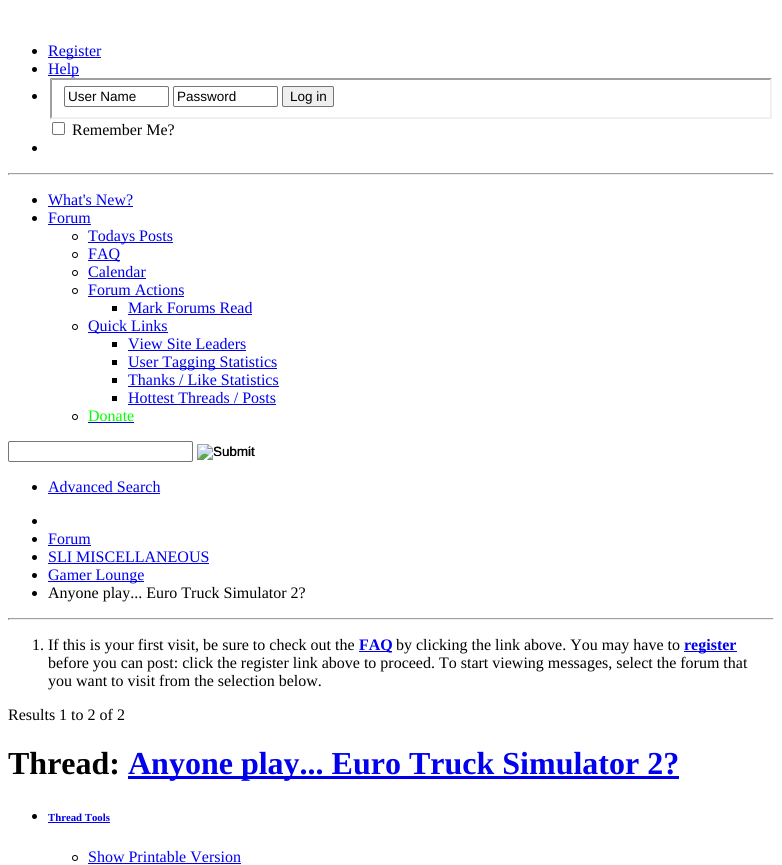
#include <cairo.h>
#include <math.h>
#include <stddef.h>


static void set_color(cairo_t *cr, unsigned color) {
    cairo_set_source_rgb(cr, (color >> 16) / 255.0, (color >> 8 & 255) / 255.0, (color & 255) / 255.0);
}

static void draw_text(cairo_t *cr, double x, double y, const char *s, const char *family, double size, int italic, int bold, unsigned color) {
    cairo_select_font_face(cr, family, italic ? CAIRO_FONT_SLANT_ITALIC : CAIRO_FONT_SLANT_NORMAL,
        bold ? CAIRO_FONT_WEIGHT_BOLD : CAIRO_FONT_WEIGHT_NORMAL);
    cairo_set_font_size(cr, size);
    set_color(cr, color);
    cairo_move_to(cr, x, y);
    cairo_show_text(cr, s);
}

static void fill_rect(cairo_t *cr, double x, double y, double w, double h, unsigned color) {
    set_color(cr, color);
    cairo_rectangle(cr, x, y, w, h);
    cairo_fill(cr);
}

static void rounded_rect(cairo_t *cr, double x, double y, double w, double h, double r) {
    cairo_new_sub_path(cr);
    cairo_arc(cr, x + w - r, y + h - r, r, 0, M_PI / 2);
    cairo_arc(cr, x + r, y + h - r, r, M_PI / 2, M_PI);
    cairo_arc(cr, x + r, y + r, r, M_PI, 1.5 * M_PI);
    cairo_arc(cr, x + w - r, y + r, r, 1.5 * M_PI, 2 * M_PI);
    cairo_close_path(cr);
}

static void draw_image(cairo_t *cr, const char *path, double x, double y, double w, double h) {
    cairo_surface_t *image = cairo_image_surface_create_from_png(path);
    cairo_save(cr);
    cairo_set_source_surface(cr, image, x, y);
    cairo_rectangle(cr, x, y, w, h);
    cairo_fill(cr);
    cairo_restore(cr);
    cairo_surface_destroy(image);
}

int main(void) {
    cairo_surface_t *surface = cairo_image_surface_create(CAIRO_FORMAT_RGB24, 782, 865);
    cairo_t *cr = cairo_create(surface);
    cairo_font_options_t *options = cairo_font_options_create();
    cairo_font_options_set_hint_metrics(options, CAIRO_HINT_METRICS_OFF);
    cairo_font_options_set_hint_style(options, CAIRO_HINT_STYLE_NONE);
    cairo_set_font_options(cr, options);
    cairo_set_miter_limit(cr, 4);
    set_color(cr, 0xFFFFFF);
    cairo_paint(cr);
    set_color(cr, 0x000000);
    cairo_arc(cr, 34.5, 51.5, 2.5, 0, 2 * M_PI);
    cairo_fill(cr);
    fill_rect(cr, 48, 57, 53, 1, 0x0000EE);
    draw_text(cr, 48, 56, "Register", "Liberation Serif", 16, 0, 0, 0x0000EE);
    set_color(cr, 0x000000);
    cairo_new_path(cr);
    cairo_arc(cr, 34.5, 69.5, 2.5, 0, 2 * M_PI);
    cairo_fill(cr);
    fill_rect(cr, 48, 75, 31, 1, 0x0000EE);
    draw_text(cr, 48, 74, "Help", "Liberation Serif", 16, 0, 0, 0x0000EE);
    set_color(cr, 0x000000);
    cairo_new_path(cr);
    cairo_arc(cr, 34.5, 96.5, 2.5, 0, 2 * M_PI);
    cairo_fill(cr);
    set_color(cr, 0x9F9F9F);
    cairo_new_path(cr);
    cairo_move_to(cr, 50, 78);
    cairo_line_to(cr, 772, 78);
    cairo_line_to(cr, 770, 80);
    cairo_line_to(cr, 52, 80);
    cairo_close_path(cr);
    cairo_fill(cr);
    set_color(cr, 0xEFEFEF);
    cairo_new_path(cr);
    cairo_move_to(cr, 772, 78);
    cairo_line_to(cr, 772, 119);
    cairo_line_to(cr, 770, 117);
    cairo_line_to(cr, 770, 80);
    cairo_close_path(cr);
    cairo_fill(cr);
    cairo_new_path(cr);
    cairo_move_to(cr, 772, 119);
    cairo_line_to(cr, 50, 119);
    cairo_line_to(cr, 52, 117);
    cairo_line_to(cr, 770, 117);
    cairo_close_path(cr);
    cairo_fill(cr);
    set_color(cr, 0x9F9F9F);
    cairo_new_path(cr);
    cairo_move_to(cr, 50, 119);
    cairo_line_to(cr, 50, 78);
    cairo_line_to(cr, 52, 80);
    cairo_line_to(cr, 52, 117);
    cairo_close_path(cr);
    cairo_fill(cr);
    rounded_rect(cr, 64.5, 86.5, 104, 20, 1.5);
    set_color(cr, 0x767676);
    cairo_set_line_width(cr, 1);
    cairo_stroke(cr);
    draw_text(cr, 68, 101, "User Name", "Liberation Sans", 13.5, 0, 0, 0x000000);
    rounded_rect(cr, 173.5, 86.5, 104, 20, 1.5);
    set_color(cr, 0x767676);
    cairo_stroke(cr);
    draw_text(cr, 177, 101, "Password", "Liberation Sans", 13.5, 0, 0, 0x000000);
    set_color(cr, 0xEFEFEF);
    rounded_rect(cr, 282.5, 86.5, 51, 20, 1.5);
    cairo_fill_preserve(cr);
    set_color(cr, 0x767676);
    cairo_stroke(cr);
    draw_text(cr, 290, 101, "Log in", "Liberation Sans", 13.5, 0, 0, 0x000000);
    rounded_rect(cr, 52.5, 122.5, 12, 12, 1.5);
    set_color(cr, 0x767676);
    cairo_stroke(cr);
    draw_text(cr, 72, 135, "Remember Me?", "Liberation Serif", 16, 0, 0, 0x000000);
    cairo_new_path(cr);
    cairo_arc(cr, 34.5, 148.5, 2.5, 0, 2 * M_PI);
    cairo_fill(cr);
    fill_rect(cr, 8, 173, 766, 1, 0x9F9F9F);
    fill_rect(cr, 773, 173, 1, 2, 0xEEEEEE);
    fill_rect(cr, 8, 174, 766, 1, 0xEEEEEE);
    fill_rect(cr, 8, 173, 1, 2, 0x9F9F9F);
    set_color(cr, 0x000000);
    cairo_arc(cr, 34.5, 200.5, 2.5, 0, 2 * M_PI);
    cairo_fill(cr);
    draw_text(cr, 48, 205, "What's New?", "Liberation Serif", 16, 0, 0, 0x0000EE);
    fill_rect(cr, 48, 206, 85, 1, 0x0000EE);
    set_color(cr, 0x000000);
    cairo_new_path(cr);
    cairo_arc(cr, 34.5, 218.5, 2.5, 0, 2 * M_PI);
    cairo_fill(cr);
    draw_text(cr, 48, 223, "Forum", "Liberation Serif", 16, 0, 0, 0x0000EE);
    fill_rect(cr, 48, 224, 43, 1, 0x0000EE);
    cairo_new_path(cr);
    cairo_arc(cr, 75, 237, 2.5, 0, 2 * M_PI);
    set_color(cr, 0x000000);
    cairo_stroke(cr);
    fill_rect(cr, 88, 242, 85, 1, 0x0000EE);
    draw_text(cr, 88, 241, "Todays Posts", "Liberation Serif", 16, 0, 0, 0x0000EE);
    cairo_new_path(cr);
    cairo_arc(cr, 75, 255, 2.5, 0, 2 * M_PI);
    set_color(cr, 0x000000);
    cairo_stroke(cr);
    fill_rect(cr, 88, 260, 32, 1, 0x0000EE);
    draw_text(cr, 88, 259, "FAQ", "Liberation Serif", 16, 0, 0, 0x0000EE);
    cairo_new_path(cr);
    cairo_arc(cr, 75, 273, 2.5, 0, 2 * M_PI);
    set_color(cr, 0x000000);
    cairo_stroke(cr);
    draw_text(cr, 88, 277, "Calendar", "Liberation Serif", 16, 0, 0, 0x0000EE);
    fill_rect(cr, 88, 278, 58, 1, 0x0000EE);
    cairo_new_path(cr);
    cairo_arc(cr, 75, 291, 2.5, 0, 2 * M_PI);
    set_color(cr, 0x000000);
    cairo_stroke(cr);
    draw_text(cr, 88, 295, "Forum Actions", "Liberation Serif", 16, 0, 0, 0x0000EE);
    fill_rect(cr, 88, 296, 96, 1, 0x0000EE);
    fill_rect(cr, 112, 306, 5, 5, 0x000000);
    draw_text(cr, 128, 313, "Mark Forums Read", "Liberation Serif", 16, 0, 0, 0x0000EE);
    fill_rect(cr, 128, 314, 124, 1, 0x0000EE);
    cairo_new_path(cr);
    cairo_arc(cr, 75, 327, 2.5, 0, 2 * M_PI);
    set_color(cr, 0x000000);
    cairo_stroke(cr);
    fill_rect(cr, 88, 332, 80, 1, 0x0000EE);
    draw_text(cr, 88, 331, "Quick Links", "Liberation Serif", 16, 0, 0, 0x0000EE);
    fill_rect(cr, 112, 342, 5, 5, 0x000000);
    draw_text(cr, 128, 349, "View Site Leaders", "Liberation Serif", 16, 0, 0, 0x0000EE);
    fill_rect(cr, 128, 350, 118, 1, 0x0000EE);
    fill_rect(cr, 112, 360, 5, 5, 0x000000);
    fill_rect(cr, 128, 368, 149, 1, 0x0000EE);
    draw_text(cr, 128, 367, "User Tagging Statistics", "Liberation Serif", 16, 0, 0, 0x0000EE);
    fill_rect(cr, 112, 378, 5, 5, 0x000000);
    draw_text(cr, 128, 385, "Thanks / Like Statistics", "Liberation Serif", 16, 0, 0, 0x0000EE);
    fill_rect(cr, 128, 386, 151, 1, 0x0000EE);
    fill_rect(cr, 112, 396, 5, 5, 0x000000);
    draw_text(cr, 128, 403, "Hottest Threads / Posts", "Liberation Serif", 16, 0, 0, 0x0000EE);
    fill_rect(cr, 128, 404, 148, 1, 0x0000EE);
    cairo_new_path(cr);
    cairo_arc(cr, 75, 417, 2.5, 0, 2 * M_PI);
    set_color(cr, 0x000000);
    cairo_stroke(cr);
    draw_text(cr, 88, 421, "Donate", "Liberation Serif", 16, 0, 0, 0x00FF00);
    fill_rect(cr, 88, 422, 46, 1, 0x0000EE);
    rounded_rect(cr, 8.5, 441.5, 184, 20, 1.5);
    set_color(cr, 0x767676);
    cairo_stroke(cr);
    draw_image(cr, "assets/img1.png", 197, 444, 57, 16);
    draw_text(cr, 213, 456, "Submit", "Liberation Sans", 13.5, 0, 0, 0x000000);
    cairo_new_path(cr);
    cairo_arc(cr, 34.5, 487.5, 2.5, 0, 2 * M_PI);
    cairo_fill(cr);
    draw_text(cr, 48, 492, "Advanced Search", "Liberation Serif", 16, 0, 0, 0x0000EE);
    fill_rect(cr, 48, 493, 112, 1, 0x0000EE);
    set_color(cr, 0x000000);
    cairo_new_path(cr);
    cairo_arc(cr, 34.5, 521.5, 2.5, 0, 2 * M_PI);
    cairo_fill(cr);
    cairo_arc(cr, 34.5, 539.5, 2.5, 0, 2 * M_PI);
    cairo_fill(cr);
    draw_text(cr, 48, 544, "Forum", "Liberation Serif", 16, 0, 0, 0x0000EE);
    fill_rect(cr, 48, 545, 43, 1, 0x0000EE);
    set_color(cr, 0x000000);
    cairo_new_path(cr);
    cairo_arc(cr, 34.5, 557.5, 2.5, 0, 2 * M_PI);
    cairo_fill(cr);
    draw_text(cr, 48, 562, "SLI MISCELLANEOUS", "Liberation Serif", 16, 0, 0, 0x0000EE);
    fill_rect(cr, 48, 563, 161, 1, 0x0000EE);
    set_color(cr, 0x000000);
    cairo_new_path(cr);
    cairo_arc(cr, 34.5, 575.5, 2.5, 0, 2 * M_PI);
    cairo_fill(cr);
    fill_rect(cr, 48, 581, 96, 1, 0x0000EE);
    draw_text(cr, 48, 580, "Gamer Lounge", "Liberation Serif", 16, 0, 0, 0x0000EE);
    set_color(cr, 0x000000);
    cairo_new_path(cr);
    cairo_arc(cr, 34.5, 593.5, 2.5, 0, 2 * M_PI);
    cairo_fill(cr);
    draw_text(cr, 48, 598, "Anyone play... Euro Truck Simulator 2?", "Liberation Serif", 16, 0, 0, 0x000000);
    fill_rect(cr, 8, 618, 766, 1, 0x9F9F9F);
    fill_rect(cr, 773, 618, 1, 2, 0xEEEEEE);
    fill_rect(cr, 8, 619, 766, 1, 0xEEEEEE);
    fill_rect(cr, 8, 618, 1, 2, 0x9F9F9F);
    draw_text(cr, 32, 650, "1. If this is your first visit, be sure to check out the", "Liberation Serif", 16, 0, 0, 0x000000);
    fill_rect(cr, 359, 651, 33, 1, 0x0000EE);
    draw_text(cr, 359, 650, "FAQ", "Liberation Serif", 16, 0, 1, 0x0000EE);
    draw_text(cr, 396, 650, "by clicking the link above. You may have to", "Liberation Serif", 16, 0, 0, 0x000000);
    fill_rect(cr, 684, 651, 53, 1, 0x0000EE);
    draw_text(cr, 684, 650, "register", "Liberation Serif", 16, 0, 1, 0x0000EE);
    draw_text(cr, 48, 668, "before you can post: click the register link above to proceed. To start viewing messages, select the forum that", "Liberation Serif", 16, 0, 0, 0x000000);
    draw_text(cr, 48, 686, "you want to visit from the selection below.", "Liberation Serif", 16, 0, 0, 0x000000);
    draw_text(cr, 8, 720, "Results 1 to 2 of 2", "Liberation Serif", 16, 0, 0, 0x000000);
    draw_text(cr, 8, 774, "Thread:", "Liberation Serif", 32, 0, 1, 0x000000);
    fill_rect(cr, 128, 776, 551, 3, 0x0000EE);
    draw_text(cr, 128, 774, "Anyone play... Euro Truck Simulator 2?", "Liberation Serif", 32, 0, 1, 0x0000EE);
    set_color(cr, 0x000000);
    cairo_new_path(cr);
    cairo_arc(cr, 34.5, 816.5, 2.5, 0, 2 * M_PI);
    cairo_fill(cr);
    draw_text(cr, 48, 821, "Thread Tools", "Liberation Serif", 10.75, 0, 1, 0x0000EE);
    fill_rect(cr, 48, 822, 62, 1, 0x0000EE);
    cairo_new_path(cr);
    cairo_arc(cr, 75, 858, 2.5, 0, 2 * M_PI);
    set_color(cr, 0x000000);
    cairo_stroke(cr);
    draw_text(cr, 88, 862, "Show Printable Version", "Liberation Serif", 16, 0, 0, 0x0000EE);
    fill_rect(cr, 88, 863, 153, 1, 0x0000EE);
    cairo_surface_write_to_png(surface, "output.png");
    cairo_font_options_destroy(options);
    cairo_destroy(cr);
    cairo_surface_destroy(surface);
    return 0;
}
